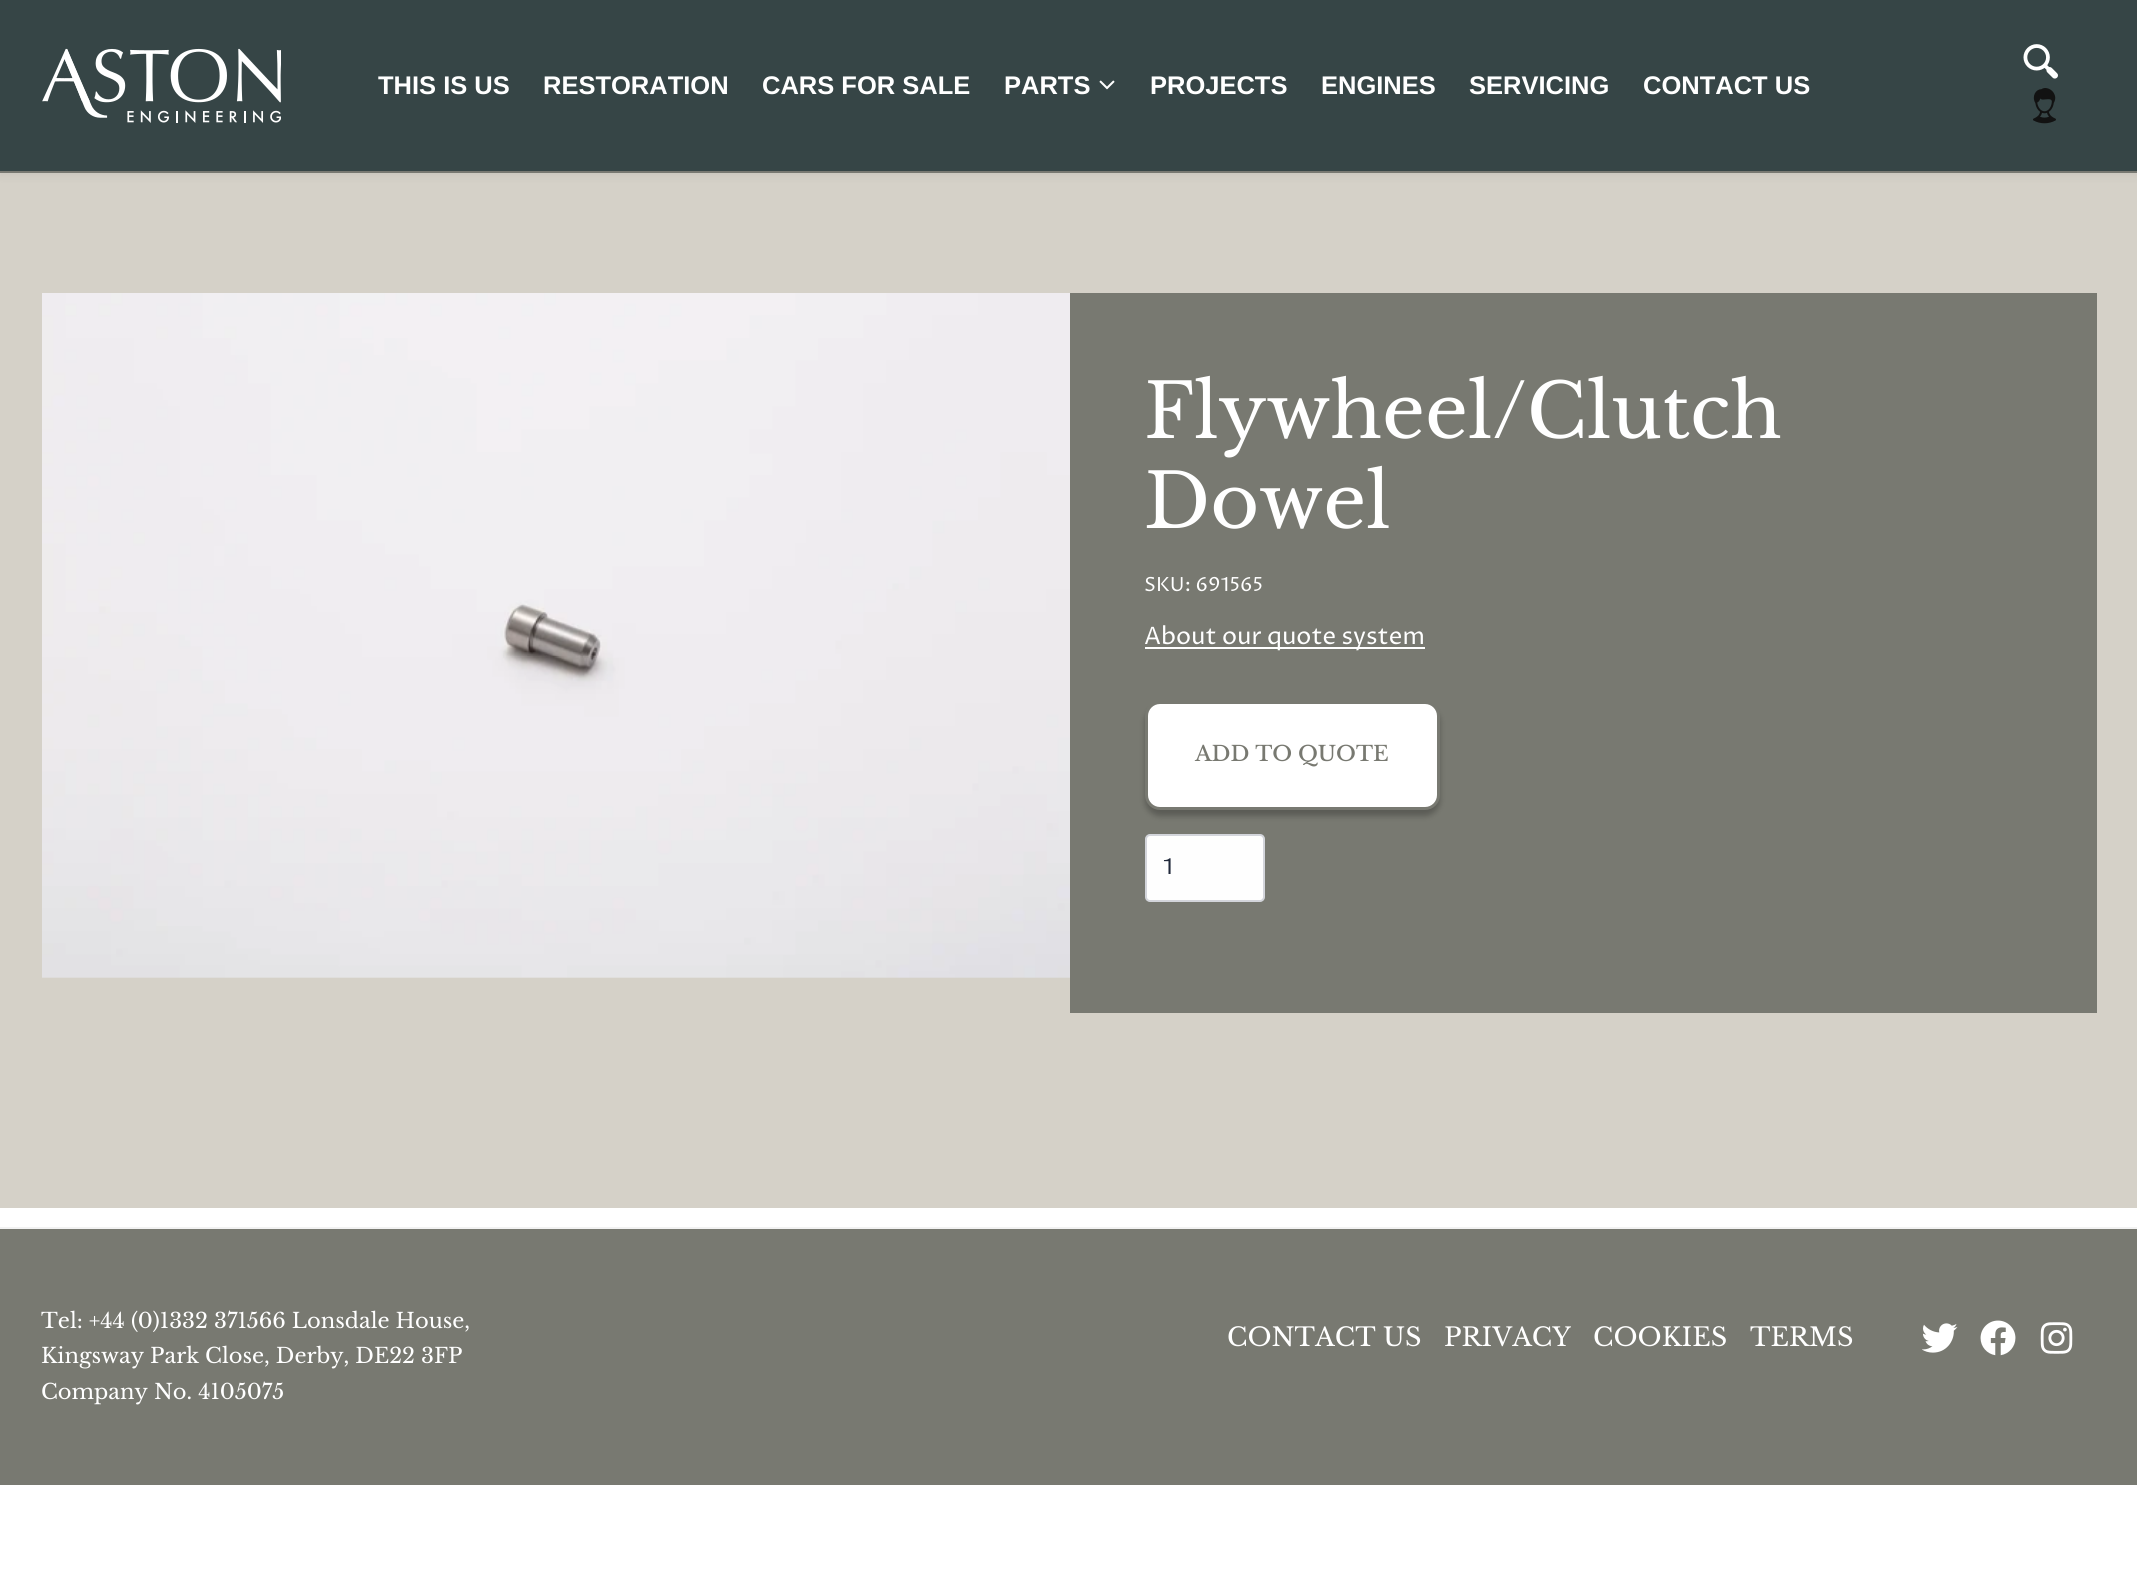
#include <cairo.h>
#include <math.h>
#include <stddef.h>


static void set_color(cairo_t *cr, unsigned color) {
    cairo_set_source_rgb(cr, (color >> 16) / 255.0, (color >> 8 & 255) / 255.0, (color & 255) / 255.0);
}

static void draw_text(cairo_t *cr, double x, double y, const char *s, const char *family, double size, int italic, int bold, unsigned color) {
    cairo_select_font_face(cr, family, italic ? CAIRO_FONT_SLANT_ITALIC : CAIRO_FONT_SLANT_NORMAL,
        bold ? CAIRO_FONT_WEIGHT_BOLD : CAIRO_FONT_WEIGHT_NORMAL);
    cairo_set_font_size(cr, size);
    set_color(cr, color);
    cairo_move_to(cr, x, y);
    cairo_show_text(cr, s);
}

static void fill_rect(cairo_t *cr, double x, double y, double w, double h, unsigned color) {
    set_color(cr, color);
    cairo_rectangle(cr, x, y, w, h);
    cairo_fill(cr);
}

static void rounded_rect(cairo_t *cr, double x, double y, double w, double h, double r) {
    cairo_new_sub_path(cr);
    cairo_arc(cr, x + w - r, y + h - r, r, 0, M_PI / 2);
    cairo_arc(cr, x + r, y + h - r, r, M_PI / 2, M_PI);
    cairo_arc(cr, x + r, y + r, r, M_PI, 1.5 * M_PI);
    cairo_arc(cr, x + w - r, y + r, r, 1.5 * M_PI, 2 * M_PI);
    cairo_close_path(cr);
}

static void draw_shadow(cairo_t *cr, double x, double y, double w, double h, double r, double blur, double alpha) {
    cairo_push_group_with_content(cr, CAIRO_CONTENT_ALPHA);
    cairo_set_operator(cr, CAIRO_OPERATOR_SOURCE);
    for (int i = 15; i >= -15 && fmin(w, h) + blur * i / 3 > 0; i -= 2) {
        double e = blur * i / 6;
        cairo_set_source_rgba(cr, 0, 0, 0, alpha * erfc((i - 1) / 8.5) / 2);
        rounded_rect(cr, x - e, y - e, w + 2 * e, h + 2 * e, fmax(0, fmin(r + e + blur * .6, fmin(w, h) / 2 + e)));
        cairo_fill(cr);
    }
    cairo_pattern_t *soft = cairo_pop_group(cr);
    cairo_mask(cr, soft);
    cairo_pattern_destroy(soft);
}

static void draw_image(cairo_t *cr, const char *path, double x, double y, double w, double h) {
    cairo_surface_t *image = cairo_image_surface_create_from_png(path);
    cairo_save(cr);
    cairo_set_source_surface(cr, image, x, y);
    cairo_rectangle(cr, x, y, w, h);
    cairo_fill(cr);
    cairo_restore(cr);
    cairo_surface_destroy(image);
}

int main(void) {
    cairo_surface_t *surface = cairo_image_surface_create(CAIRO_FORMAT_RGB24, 2137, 1594);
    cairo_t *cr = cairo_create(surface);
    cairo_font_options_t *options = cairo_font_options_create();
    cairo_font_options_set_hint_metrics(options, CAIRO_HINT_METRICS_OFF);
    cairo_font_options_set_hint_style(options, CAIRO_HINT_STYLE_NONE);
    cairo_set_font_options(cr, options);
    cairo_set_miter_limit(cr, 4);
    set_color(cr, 0xFFFFFF);
    cairo_paint(cr);
    fill_rect(cr, 0, 173, 2137, 1035, 0xD5D1C8);
    set_color(cr, 0x000000);
    draw_shadow(cr, 0, 3, 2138, 173, 0, 4.5, 0.05);
    fill_rect(cr, 0, 0, 2137, 171, 0x364546);
    fill_rect(cr, 0, 171, 2137, 2, 0x787972);
    draw_image(cr, "assets/img1.png", 42, 48, 239, 75);
    draw_text(cr, 378, 94, "THIS IS US", "Liberation Sans", 25.5, 0, 1, 0xFFFFFF);
    draw_text(cr, 543, 94, "RESTORATION", "Liberation Sans", 25.5, 0, 1, 0xFFFFFF);
    draw_text(cr, 762, 94, "CARS FOR SALE", "Liberation Sans", 25.5, 0, 1, 0xFFFFFF);
    draw_text(cr, 1004, 94, "PARTS", "Liberation Sans", 25.5, 0, 1, 0xFFFFFF);
    draw_image(cr, "assets/img2.png", 1099, 80, 16, 10);
    draw_text(cr, 1150, 94, "PROJECTS", "Liberation Sans", 25.5, 0, 1, 0xFFFFFF);
    draw_text(cr, 1321, 94, "ENGINES", "Liberation Sans", 25.5, 0, 1, 0xFFFFFF);
    draw_text(cr, 1469, 94, "SERVICING", "Liberation Sans", 25.5, 0, 1, 0xFFFFFF);
    draw_text(cr, 1643, 94, "CONTACT US", "Liberation Sans", 25.5, 0, 1, 0xFFFFFF);
    draw_image(cr, "assets/img3.png", 2023, 44, 35, 35);
    draw_image(cr, "assets/img4.png", 2033, 88, 23, 36);
    draw_image(cr, "assets/img5.png", 42, 293, 1028, 685);
    fill_rect(cr, 1070, 293, 1027, 720, 0x787971);
    draw_text(cr, 1144, 438, "Flywheel/Clutch", "Libre Baskerville", 75, 0, 0, 0xFFFFFF);
    draw_text(cr, 1144, 528, "Dowel", "Libre Baskerville", 75, 0, 0, 0xFFFFFF);
    draw_text(cr, 1144, 591, "SKU: 691565", "Proza Libre", 19.5, 0, 0, 0xFFFFFF);
    fill_rect(cr, 1145, 647, 280, 2, 0xFFFFFF);
    draw_text(cr, 1144, 644, "About our quote system", "Proza Libre", 24, 0, 0, 0xFFFFFF);
    set_color(cr, 0x000000);
    draw_shadow(cr, 1145, 707, 295, 109, 15, 3, 0.25);
    set_color(cr, 0xFFFFFF);
    rounded_rect(cr, 1146.5, 702.5, 292, 106, 13.5);
    cairo_fill_preserve(cr);
    set_color(cr, 0x787971);
    cairo_set_line_width(cr, 3);
    cairo_stroke(cr);
    draw_text(cr, 1195, 761, "ADD TO QUOTE", "Libre Baskerville Medium", 21, 0, 0, 0x787971);
    set_color(cr, 0xFEFEFE);
    rounded_rect(cr, 1146, 835, 118, 66, 4);
    cairo_fill_preserve(cr);
    set_color(cr, 0xD3D5DB);
    cairo_set_line_width(cr, 2);
    cairo_stroke(cr);
    draw_text(cr, 1163, 874, "1", "Proza Libre", 22, 0, 0, 0x21293B);
    fill_rect(cr, 0, 1229, 2137, 256, 0x787971);
    fill_rect(cr, 0, 1227, 2137, 2, 0xF2F2F2);
    draw_text(cr, 41, 1328, "Tel: +44 (0)1332 371566 Lonsdale House,", "Libre Baskerville", 21, 0, 0, 0xFFFFFF);
    draw_text(cr, 41, 1363, "Kingsway Park Close, Derby, DE22 3FP", "Libre Baskerville", 21, 0, 0, 0xFFFFFF);
    draw_text(cr, 41, 1399, "Company No. 4105075", "Libre Baskerville", 21, 0, 0, 0xFFFFFF);
    draw_text(cr, 1227, 1346, "CONTACT US", "Libre Baskerville", 25.5, 0, 0, 0xFFFFFF);
    draw_text(cr, 1444, 1346, "PRIVACY", "Libre Baskerville", 25.5, 0, 0, 0xFFFFFF);
    draw_text(cr, 1593, 1346, "COOKIES", "Libre Baskerville", 25.5, 0, 0, 0xFFFFFF);
    draw_text(cr, 1750, 1346, "TERMS", "Libre Baskerville", 25.5, 0, 0, 0xFFFFFF);
    draw_image(cr, "assets/img6.png", 1922, 1323, 36, 30);
    draw_image(cr, "assets/img7.png", 1980, 1320, 36, 36);
    draw_image(cr, "assets/img8.png", 2040, 1322, 33, 32);
    cairo_surface_write_to_png(surface, "output.png");
    cairo_font_options_destroy(options);
    cairo_destroy(cr);
    cairo_surface_destroy(surface);
    return 0;
}
